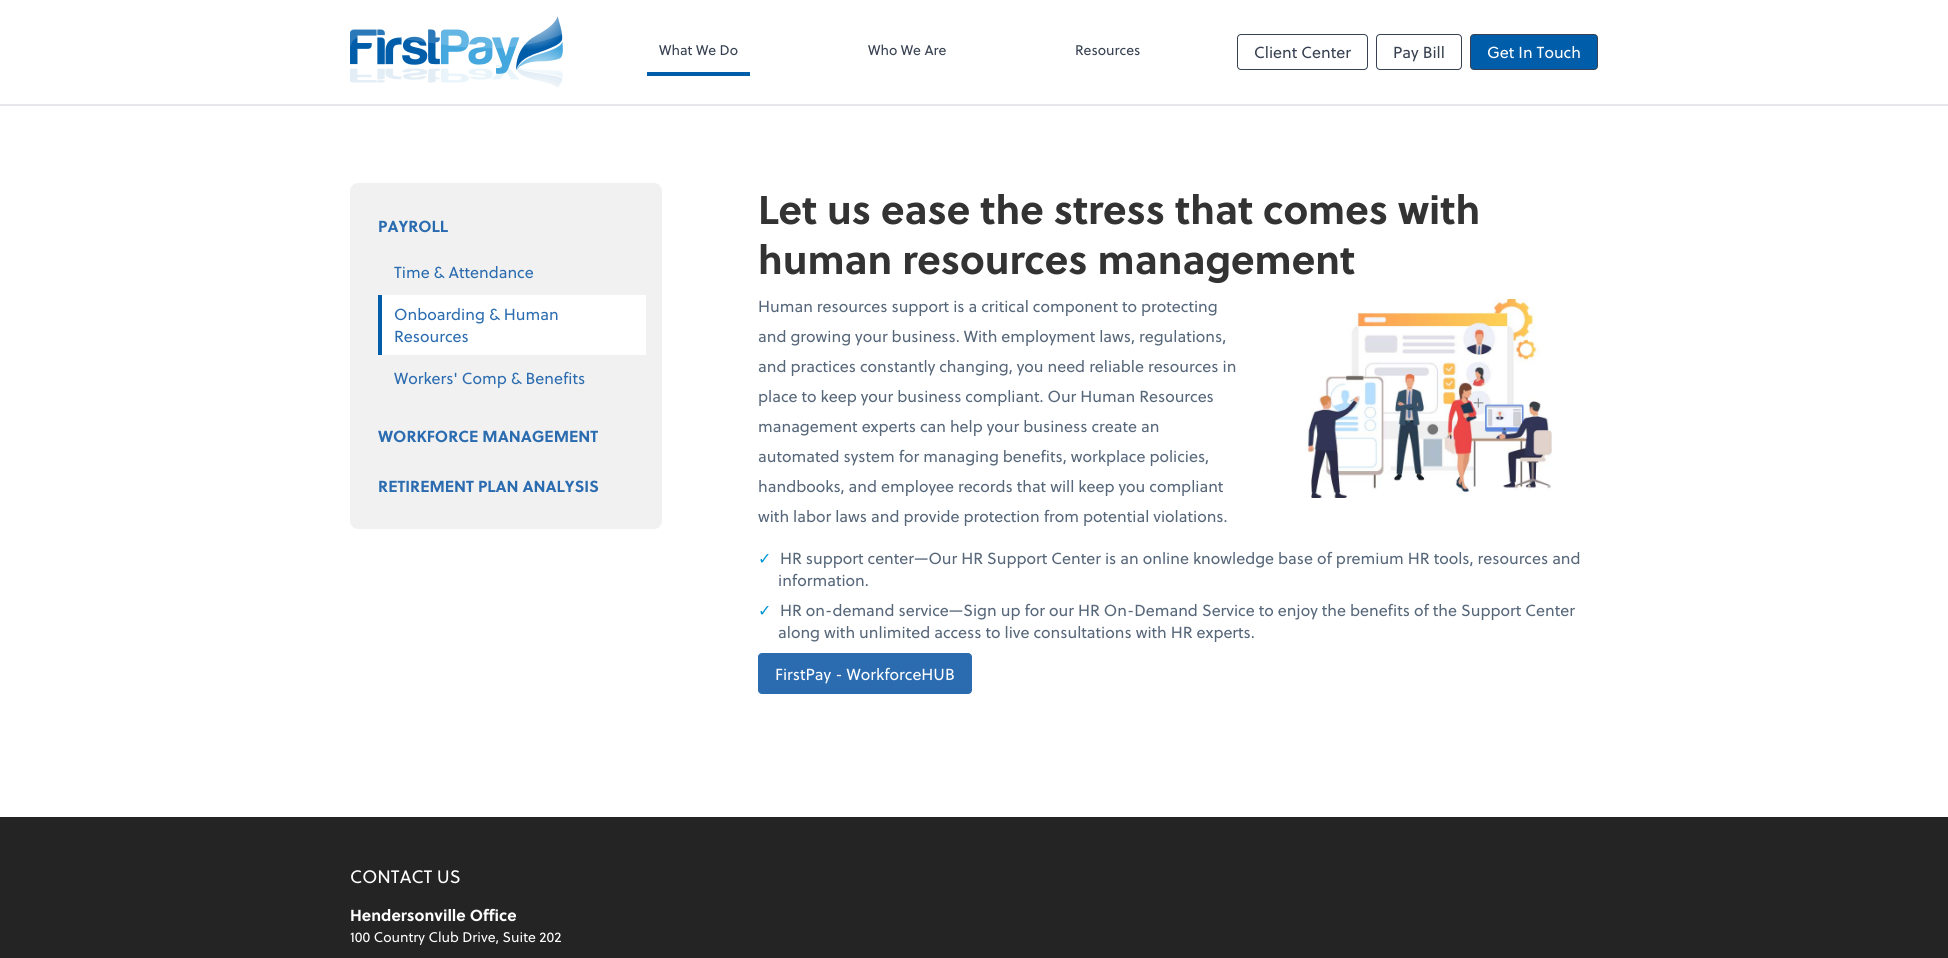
#include <cairo.h>
#include <math.h>
#include <stddef.h>


static void set_color(cairo_t *cr, unsigned color) {
    cairo_set_source_rgb(cr, (color >> 16) / 255.0, (color >> 8 & 255) / 255.0, (color & 255) / 255.0);
}

static void draw_text(cairo_t *cr, double x, double y, const char *s, const char *family, double size, int italic, int bold, unsigned color) {
    cairo_select_font_face(cr, family, italic ? CAIRO_FONT_SLANT_ITALIC : CAIRO_FONT_SLANT_NORMAL,
        bold ? CAIRO_FONT_WEIGHT_BOLD : CAIRO_FONT_WEIGHT_NORMAL);
    cairo_set_font_size(cr, size);
    set_color(cr, color);
    cairo_move_to(cr, x, y);
    cairo_show_text(cr, s);
}

static void fill_rect(cairo_t *cr, double x, double y, double w, double h, unsigned color) {
    set_color(cr, color);
    cairo_rectangle(cr, x, y, w, h);
    cairo_fill(cr);
}

static void rounded_rect(cairo_t *cr, double x, double y, double w, double h, double r) {
    cairo_new_sub_path(cr);
    cairo_arc(cr, x + w - r, y + h - r, r, 0, M_PI / 2);
    cairo_arc(cr, x + r, y + h - r, r, M_PI / 2, M_PI);
    cairo_arc(cr, x + r, y + r, r, M_PI, 1.5 * M_PI);
    cairo_arc(cr, x + w - r, y + r, r, 1.5 * M_PI, 2 * M_PI);
    cairo_close_path(cr);
}

static void draw_image(cairo_t *cr, const char *path, double x, double y, double w, double h) {
    cairo_surface_t *image = cairo_image_surface_create_from_png(path);
    cairo_save(cr);
    cairo_set_source_surface(cr, image, x, y);
    cairo_rectangle(cr, x, y, w, h);
    cairo_fill(cr);
    cairo_restore(cr);
    cairo_surface_destroy(image);
}

int main(void) {
    cairo_surface_t *surface = cairo_image_surface_create(CAIRO_FORMAT_RGB24, 1948, 958);
    cairo_t *cr = cairo_create(surface);
    cairo_font_options_t *options = cairo_font_options_create();
    cairo_font_options_set_hint_metrics(options, CAIRO_HINT_METRICS_OFF);
    cairo_font_options_set_hint_style(options, CAIRO_HINT_STYLE_NONE);
    cairo_set_font_options(cr, options);
    cairo_set_miter_limit(cr, 4);
    set_color(cr, 0xFFFFFF);
    cairo_paint(cr);
    fill_rect(cr, 0, 104, 1948, 2, 0xE5E7EB);
    draw_image(cr, "assets/img1.png", 350, 16, 213, 72);
    fill_rect(cr, 647, 72, 103, 4, 0x005DAA);
    draw_text(cr, 659, 55, "What We Do", "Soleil", 14, 0, 0, 0x374151);
    draw_text(cr, 868, 55, "Who We Are", "Soleil", 14, 0, 0, 0x374151);
    draw_text(cr, 1075, 55, "Resources", "Soleil", 14, 0, 0, 0x374151);
    rounded_rect(cr, 1237.5, 34.5, 130, 35, 3.5);
    cairo_set_line_width(cr, 1);
    cairo_stroke(cr);
    draw_text(cr, 1254, 58, "Client Center", "Soleil", 16, 0, 0, 0x374151);
    rounded_rect(cr, 1376.5, 34.5, 85, 35, 3.5);
    cairo_stroke(cr);
    draw_text(cr, 1393, 58, "Pay Bill", "Soleil", 16, 0, 0, 0x374151);
    set_color(cr, 0x005DAA);
    rounded_rect(cr, 1470.5, 34.5, 127, 35, 3.5);
    cairo_fill_preserve(cr);
    set_color(cr, 0x374151);
    cairo_stroke(cr);
    draw_text(cr, 1487, 58, "Get In Touch", "Soleil", 16, 0, 0, 0xFFFFFF);
    set_color(cr, 0xF1F1F1);
    rounded_rect(cr, 350, 183, 312, 346, 8);
    cairo_fill(cr);
    draw_text(cr, 378, 232, "PAYROLL", "Soleil", 16, 0, 1, 0x2B6CB0);
    draw_text(cr, 394, 278, "Time & Attendance", "Soleil", 16, 0, 0, 0x2B6CB0);
    fill_rect(cr, 382, 295, 264, 60, 0xFFFFFF);
    fill_rect(cr, 378, 295, 4, 60, 0x005DAA);
    draw_text(cr, 394, 320, "Onboarding & Human", "Soleil", 16, 0, 0, 0x2B6CB0);
    draw_text(cr, 394, 342, "Resources", "Soleil", 16, 0, 0, 0x2B6CB0);
    draw_text(cr, 394, 384, "Workers' Comp & Benefits", "Soleil", 16, 0, 0, 0x2B6CB0);
    draw_text(cr, 378, 442, "WORKFORCE MANAGEMENT", "Soleil", 16, 0, 1, 0x2B6CB0);
    draw_text(cr, 378, 492, "RETIREMENT PLAN ANALYSIS", "Soleil", 16, 0, 1, 0x2B6CB0);
    draw_text(cr, 758, 224, "Let us ease the stress that comes with", "Soleil", 40, 0, 1, 0x333333);
    draw_text(cr, 758, 274, "human resources management", "Soleil", 40, 0, 1, 0x333333);
    draw_text(cr, 758, 312, "Human resources support is a critical component to protecting", "Soleil", 16, 0, 0, 0x57677A);
    draw_text(cr, 758, 342, "and growing your business. With employment laws, regulations,", "Soleil", 16, 0, 0, 0x57677A);
    draw_text(cr, 758, 372, "and practices constantly changing, you need reliable resources in", "Soleil", 16, 0, 0, 0x57677A);
    draw_text(cr, 758, 402, "place to keep your business compliant. Our Human Resources", "Soleil", 16, 0, 0, 0x57677A);
    draw_text(cr, 758, 432, "management experts can help your business create an", "Soleil", 16, 0, 0, 0x57677A);
    draw_text(cr, 758, 462, "automated system for managing benefits, workplace policies,", "Soleil", 16, 0, 0, 0x57677A);
    draw_text(cr, 758, 492, "handbooks, and employee records that will keep you compliant", "Soleil", 16, 0, 0, 0x57677A);
    draw_text(cr, 758, 522, "with labor laws and provide protection from potential violations.", "Soleil", 16, 0, 0, 0x57677A);
    draw_image(cr, "assets/img2.png", 1306, 299, 246, 199);
    draw_text(cr, 758, 564, "✓", "DejaVu Sans", 16, 0, 0, 0x0096D6);
    draw_text(cr, 780, 564, "HR support center—Our HR Support Center is an online knowledge base of premium HR tools, resources and", "Soleil", 16, 0, 0, 0x57677A);
    draw_text(cr, 778, 586, "information.", "Soleil", 16, 0, 0, 0x57677A);
    draw_text(cr, 758, 616, "✓", "DejaVu Sans", 16, 0, 0, 0x0096D6);
    draw_text(cr, 780, 616, "HR on-demand service—Sign up for our HR On-Demand Service to enjoy the benefits of the Support Center", "Soleil", 16, 0, 0, 0x57677A);
    draw_text(cr, 778, 638, "along with unlimited access to live consultations with HR experts.", "Soleil", 16, 0, 0, 0x57677A);
    set_color(cr, 0x2B6CB0);
    rounded_rect(cr, 758.5, 653.5, 213, 40, 3.5);
    cairo_fill_preserve(cr);
    cairo_stroke(cr);
    draw_text(cr, 775, 680, "FirstPay - WorkforceHUB", "Soleil", 16, 0, 0, 0xFFFFFF);
    fill_rect(cr, 0, 817, 1948, 141, 0x242424);
    draw_text(cr, 350, 883, "CONTACT US", "Soleil", 18, 0, 0, 0xFFFFFF);
    draw_text(cr, 350, 921, "Hendersonville Office", "Soleil", 16, 0, 1, 0xFFFFFF);
    draw_text(cr, 350, 942, "100 Country Club Drive, Suite 202", "Soleil", 14, 0, 0, 0xFFFFFF);
    cairo_surface_write_to_png(surface, "output.png");
    cairo_font_options_destroy(options);
    cairo_destroy(cr);
    cairo_surface_destroy(surface);
    return 0;
}
